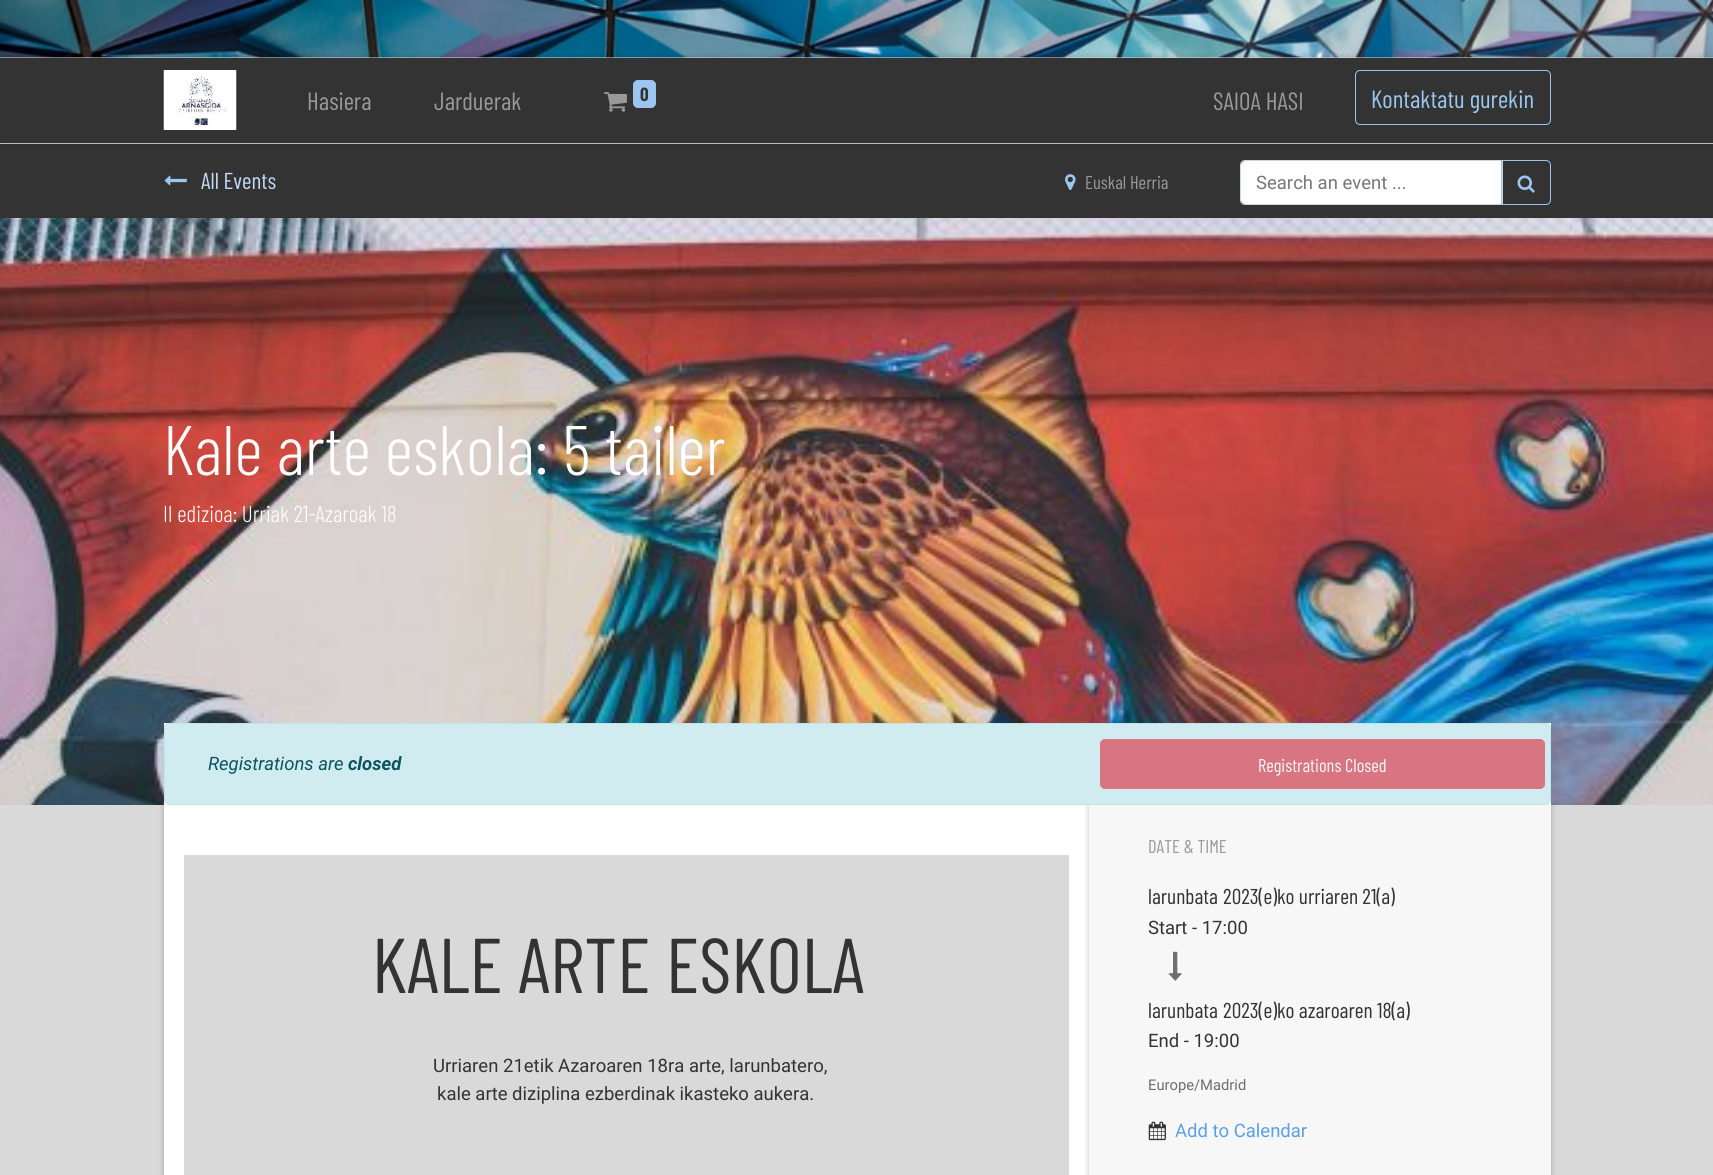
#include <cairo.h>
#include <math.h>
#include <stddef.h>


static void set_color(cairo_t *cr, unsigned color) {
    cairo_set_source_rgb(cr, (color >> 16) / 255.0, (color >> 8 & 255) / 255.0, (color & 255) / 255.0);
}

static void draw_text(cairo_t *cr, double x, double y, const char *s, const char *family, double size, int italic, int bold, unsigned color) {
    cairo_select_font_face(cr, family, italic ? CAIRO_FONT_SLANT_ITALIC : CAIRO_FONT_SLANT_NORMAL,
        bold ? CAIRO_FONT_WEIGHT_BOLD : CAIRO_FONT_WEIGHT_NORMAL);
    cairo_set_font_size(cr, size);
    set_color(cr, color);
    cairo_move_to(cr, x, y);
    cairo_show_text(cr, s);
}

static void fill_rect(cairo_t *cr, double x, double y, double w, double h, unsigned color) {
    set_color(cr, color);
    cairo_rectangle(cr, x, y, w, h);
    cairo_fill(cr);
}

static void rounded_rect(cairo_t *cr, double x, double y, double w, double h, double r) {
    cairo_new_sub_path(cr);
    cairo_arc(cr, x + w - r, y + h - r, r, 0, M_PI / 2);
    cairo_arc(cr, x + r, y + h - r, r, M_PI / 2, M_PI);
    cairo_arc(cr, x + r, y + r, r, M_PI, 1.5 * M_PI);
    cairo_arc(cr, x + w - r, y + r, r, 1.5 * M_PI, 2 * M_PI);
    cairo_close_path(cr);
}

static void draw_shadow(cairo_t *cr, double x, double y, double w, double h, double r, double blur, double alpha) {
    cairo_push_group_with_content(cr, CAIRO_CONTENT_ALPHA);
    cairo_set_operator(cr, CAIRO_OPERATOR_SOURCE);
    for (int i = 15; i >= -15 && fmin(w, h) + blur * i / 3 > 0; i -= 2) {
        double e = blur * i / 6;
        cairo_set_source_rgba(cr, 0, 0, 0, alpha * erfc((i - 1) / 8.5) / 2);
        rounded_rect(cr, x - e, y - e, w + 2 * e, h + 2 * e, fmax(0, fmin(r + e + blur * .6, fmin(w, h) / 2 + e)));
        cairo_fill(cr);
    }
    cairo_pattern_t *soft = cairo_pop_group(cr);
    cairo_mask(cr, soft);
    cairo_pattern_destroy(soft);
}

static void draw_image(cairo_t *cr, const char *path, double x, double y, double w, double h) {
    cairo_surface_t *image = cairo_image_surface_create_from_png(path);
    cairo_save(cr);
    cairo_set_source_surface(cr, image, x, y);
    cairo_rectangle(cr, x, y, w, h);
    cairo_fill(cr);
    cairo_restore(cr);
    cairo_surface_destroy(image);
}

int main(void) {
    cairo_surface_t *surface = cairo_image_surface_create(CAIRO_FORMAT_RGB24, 1713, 1175);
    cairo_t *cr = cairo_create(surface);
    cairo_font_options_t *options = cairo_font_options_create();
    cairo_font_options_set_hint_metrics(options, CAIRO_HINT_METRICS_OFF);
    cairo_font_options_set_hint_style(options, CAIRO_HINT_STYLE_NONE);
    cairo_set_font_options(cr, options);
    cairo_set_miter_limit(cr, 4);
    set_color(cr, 0xFFFFFF);
    cairo_paint(cr);
    draw_image(cr, "assets/img1.png", 0, 0, 1713, 58);
    fill_rect(cr, 0, 144, 1713, 74, 0x333333);
    fill_rect(cr, 0, 143, 1713, 1, 0xD4D4D4);
    set_color(cr, 0x000000);
    draw_shadow(cr, 0, 58, 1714, 85, 0, 3, 0.25);
    fill_rect(cr, 0, 58, 1713, 85, 0x333333);
    draw_image(cr, "assets/img2.png", 163, 70, 74, 60);
    draw_text(cr, 307, 110, "Hasiera", "Barlow Condensed", 25, 0, 0, 0x999999);
    draw_text(cr, 434, 110, "Jarduerak", "Barlow Condensed", 25, 0, 0, 0x999999);
    draw_image(cr, "assets/img3.png", 603, 92, 24, 20);
    set_color(cr, 0x9CC6EF);
    rounded_rect(cr, 633, 80, 23, 28, 5);
    cairo_fill(cr);
    draw_text(cr, 640, 101, "0", "Barlow Condensed", 19, 0, 1, 0x333333);
    draw_text(cr, 1213, 110, "SAIOA HASI", "Barlow Condensed", 25, 0, 0, 0x999999);
    rounded_rect(cr, 1355.5, 70.5, 195, 54, 4.5);
    set_color(cr, 0x9CC6EF);
    cairo_set_line_width(cr, 1);
    cairo_stroke(cr);
    draw_text(cr, 1371, 108, "Kontaktatu gurekin", "Barlow Condensed", 25, 0, 0, 0x9CC6EF);
    draw_image(cr, "assets/img4.png", 164, 175, 23, 11);
    draw_text(cr, 201, 189, "All Events", "Barlow Condensed", 23.1, 0, 0, 0xBFDAF5);
    draw_image(cr, "assets/img5.png", 1065, 174, 11, 16);
    draw_text(cr, 1085, 189, "Euskal Herria", "Barlow Condensed", 18.5, 0, 0, 0x999999);
    set_color(cr, 0xFFFFFF);
    cairo_new_path(cr);
    cairo_move_to(cr, 1245, 161);
    cairo_line_to(cr, 1501, 161);
    cairo_line_to(cr, 1501, 204);
    cairo_line_to(cr, 1245, 204);
    cairo_curve_to(cr, 1243, 204, 1241, 202, 1241, 200);
    cairo_line_to(cr, 1241, 165);
    cairo_curve_to(cr, 1241, 163, 1243, 161, 1245, 161);
    cairo_close_path(cr);
    cairo_fill(cr);
    cairo_new_path(cr);
    cairo_move_to(cr, 1245, 160.5);
    cairo_line_to(cr, 1502.5, 160.5);
    cairo_line_to(cr, 1502.5, 204.5);
    cairo_line_to(cr, 1245, 204.5);
    cairo_curve_to(cr, 1242.5, 204.5, 1240.5, 202.5, 1240.5, 200);
    cairo_line_to(cr, 1240.5, 165);
    cairo_curve_to(cr, 1240.5, 162.5, 1242.5, 160.5, 1245, 160.5);
    cairo_close_path(cr);
    set_color(cr, 0xCED4DA);
    cairo_stroke(cr);
    draw_text(cr, 1256, 189, "Search an event ...", "Roboto", 18.5, 0, 0, 0x777777);
    cairo_new_path(cr);
    cairo_move_to(cr, 1501.5, 160.5);
    cairo_line_to(cr, 1546, 160.5);
    cairo_curve_to(cr, 1548.5, 160.5, 1550.5, 162.5, 1550.5, 165);
    cairo_line_to(cr, 1550.5, 200);
    cairo_curve_to(cr, 1550.5, 202.5, 1548.5, 204.5, 1546, 204.5);
    cairo_line_to(cr, 1501.5, 204.5);
    cairo_close_path(cr);
    set_color(cr, 0x9CC6EF);
    cairo_stroke(cr);
    draw_image(cr, "assets/img6.png", 1517, 175, 18, 18);
    draw_image(cr, "assets/img7.png", 0, 218, 1713, 587);
    draw_text(cr, 163, 475, "Kale arte eskola: 5 tailer", "Barlow Condensed Light", 70, 0, 0, 0xFFFFFF);
    draw_text(cr, 163, 522, "II edizioa: Urriak 21-Azaroak 18", "Barlow Condensed Light", 23.1, 0, 0, 0xFFFFFF);
    fill_rect(cr, 164, 723, 1387, 82, 0xFFFFFF);
    set_color(cr, 0xD1ECF1);
    rounded_rect(cr, 164.5, 723.5, 1386, 81, 4.5);
    cairo_fill_preserve(cr);
    set_color(cr, 0xBEE5EB);
    cairo_stroke(cr);
    draw_text(cr, 208, 770, "Registrations are", "Roboto", 18.5, 1, 0, 0x0C5460);
    draw_text(cr, 348, 770, "closed", "Roboto", 18.5, 1, 1, 0x0C5460);
    set_color(cr, 0xD87581);
    rounded_rect(cr, 1100.5, 739.5, 444, 49, 4.5);
    cairo_fill_preserve(cr);
    cairo_stroke(cr);
    draw_text(cr, 1258, 772, "Registrations Closed", "Barlow Condensed", 18.5, 0, 0, 0xEFF8FA);
    fill_rect(cr, 0, 805, 1713, 370, 0xD9D9D9);
    cairo_save(cr);
    cairo_rectangle(cr, 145, 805, 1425, 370);
    cairo_clip(cr);
    set_color(cr, 0x000000);
    draw_shadow(cr, 164, 775, 925, 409, 0, 3, 0.25);
    cairo_restore(cr);
    fill_rect(cr, 164, 805, 925, 370, 0xFFFFFF);
    fill_rect(cr, 184, 855, 885, 320, 0xD9D9D9);
    draw_text(cr, 372, 993, "KALE ARTE ESKOLA", "Barlow Condensed", 77.5, 0, 0, 0x333333);
    draw_text(cr, 433, 1072, "Urriaren 21etik Azaroaren 18ra arte, larunbatero,", "Roboto", 18.5, 0, 0, 0x333333);
    draw_text(cr, 437, 1100, "kale arte diziplina ezberdinak ikasteko aukera.", "Roboto", 18.5, 0, 0, 0x333333);
    cairo_save(cr);
    cairo_rectangle(cr, 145, 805, 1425, 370);
    cairo_clip(cr);
    set_color(cr, 0x000000);
    draw_shadow(cr, 1089, 775, 462, 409, 0, 3, 0.25);
    cairo_restore(cr);
    fill_rect(cr, 1089, 805, 462, 370, 0xF7F7F7);
    draw_text(cr, 1148, 853, "DATE & TIME", "Barlow Condensed", 18.5, 0, 0, 0x999999);
    draw_text(cr, 1148, 904, "larunbata", "Barlow Condensed", 21.5, 0, 0, 0x333333);
    draw_text(cr, 1223, 904, "2023(e)ko urriaren 21(a)", "Barlow Condensed", 21.5, 0, 0, 0x333333);
    draw_text(cr, 1148, 934, "Start - 17:00", "Roboto", 18.5, 0, 0, 0x333333);
    draw_image(cr, "assets/img8.png", 1168, 951, 14, 30);
    draw_text(cr, 1148, 1018, "larunbata", "Barlow Condensed", 21.5, 0, 0, 0x333333);
    draw_text(cr, 1223, 1018, "2023(e)ko azaroaren 18(a)", "Barlow Condensed", 21.5, 0, 0, 0x333333);
    draw_text(cr, 1148, 1047, "End - 19:00", "Roboto", 18.5, 0, 0, 0x333333);
    draw_text(cr, 1148, 1090, "Europe/Madrid", "Roboto", 14.75, 0, 0, 0x6E6E6E);
    draw_image(cr, "assets/img9.png", 1148, 1121, 18, 20);
    draw_text(cr, 1175, 1137, "Add to Calendar", "Roboto", 18.5, 0, 0, 0x5AA0E4);
    cairo_surface_write_to_png(surface, "output.png");
    cairo_font_options_destroy(options);
    cairo_destroy(cr);
    cairo_surface_destroy(surface);
    return 0;
}
